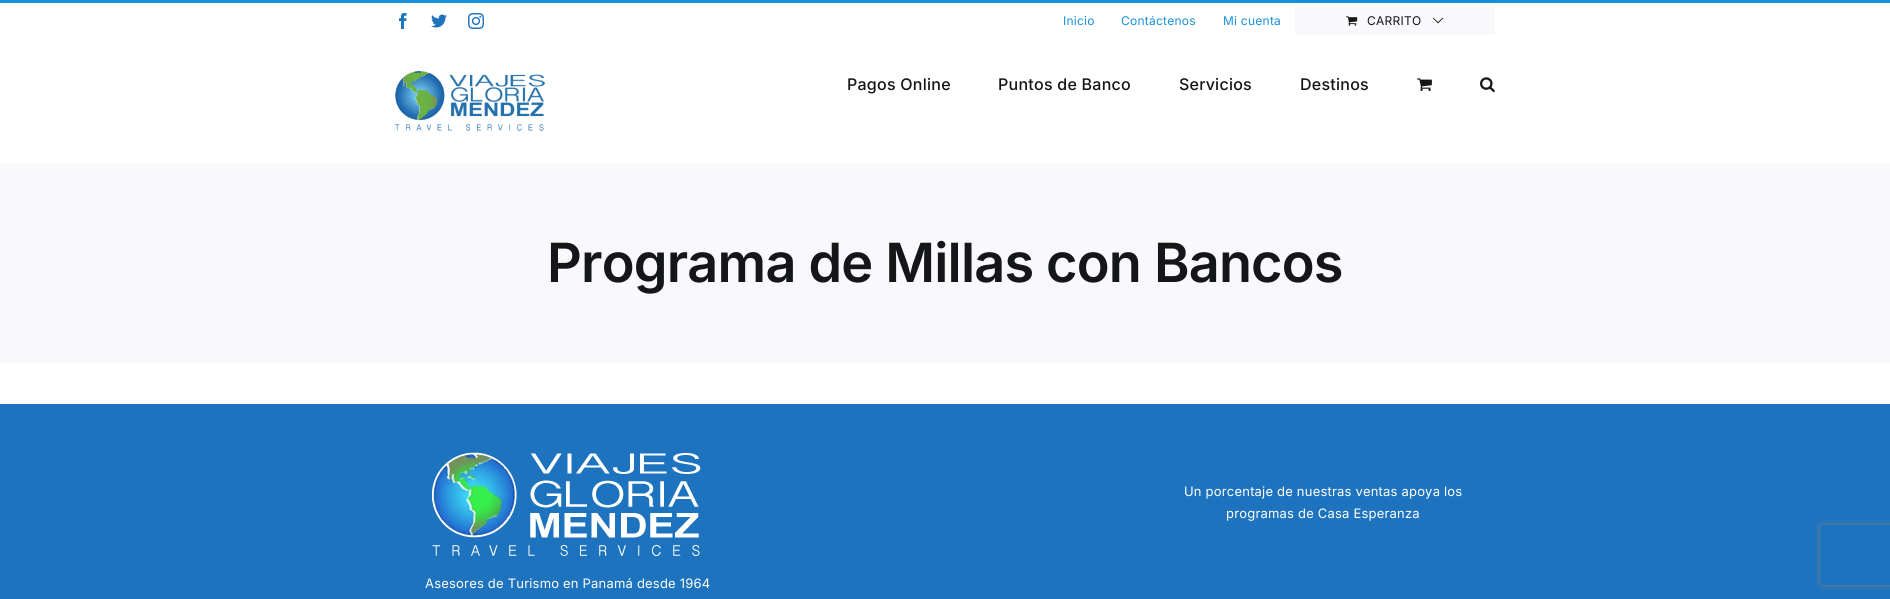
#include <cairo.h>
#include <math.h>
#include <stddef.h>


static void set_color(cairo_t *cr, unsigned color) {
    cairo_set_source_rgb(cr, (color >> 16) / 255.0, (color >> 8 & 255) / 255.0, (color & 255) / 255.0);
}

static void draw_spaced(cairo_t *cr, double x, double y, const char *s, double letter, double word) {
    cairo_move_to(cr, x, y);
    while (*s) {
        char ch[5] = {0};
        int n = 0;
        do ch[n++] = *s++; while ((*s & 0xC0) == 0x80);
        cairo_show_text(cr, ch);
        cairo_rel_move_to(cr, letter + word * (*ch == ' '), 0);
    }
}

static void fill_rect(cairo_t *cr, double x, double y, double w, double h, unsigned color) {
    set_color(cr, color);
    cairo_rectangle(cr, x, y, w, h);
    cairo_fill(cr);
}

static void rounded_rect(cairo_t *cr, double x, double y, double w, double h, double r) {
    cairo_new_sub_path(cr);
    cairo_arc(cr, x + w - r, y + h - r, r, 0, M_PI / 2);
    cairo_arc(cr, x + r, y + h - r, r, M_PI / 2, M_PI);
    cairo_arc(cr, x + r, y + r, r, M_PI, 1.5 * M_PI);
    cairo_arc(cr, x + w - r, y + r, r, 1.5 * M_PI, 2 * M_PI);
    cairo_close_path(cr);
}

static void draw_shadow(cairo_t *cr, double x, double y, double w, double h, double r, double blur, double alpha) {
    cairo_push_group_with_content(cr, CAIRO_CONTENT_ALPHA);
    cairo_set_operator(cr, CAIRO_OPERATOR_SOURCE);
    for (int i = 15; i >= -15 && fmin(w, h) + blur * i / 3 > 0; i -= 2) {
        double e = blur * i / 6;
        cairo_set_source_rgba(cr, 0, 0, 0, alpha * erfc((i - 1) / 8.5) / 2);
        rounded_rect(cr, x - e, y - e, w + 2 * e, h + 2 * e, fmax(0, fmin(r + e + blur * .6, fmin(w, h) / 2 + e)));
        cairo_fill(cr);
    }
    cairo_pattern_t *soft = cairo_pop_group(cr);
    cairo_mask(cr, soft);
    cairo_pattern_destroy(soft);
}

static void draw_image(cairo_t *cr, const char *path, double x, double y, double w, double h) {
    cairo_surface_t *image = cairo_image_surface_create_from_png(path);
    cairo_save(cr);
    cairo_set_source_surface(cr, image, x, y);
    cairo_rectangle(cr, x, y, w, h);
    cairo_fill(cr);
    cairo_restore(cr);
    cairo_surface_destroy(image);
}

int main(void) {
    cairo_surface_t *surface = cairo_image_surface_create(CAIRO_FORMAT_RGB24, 1890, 599);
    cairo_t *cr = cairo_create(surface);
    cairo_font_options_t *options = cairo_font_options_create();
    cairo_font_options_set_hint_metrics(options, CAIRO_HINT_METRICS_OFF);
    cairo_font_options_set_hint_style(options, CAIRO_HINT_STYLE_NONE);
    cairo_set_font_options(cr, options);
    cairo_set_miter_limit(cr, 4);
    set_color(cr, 0xFFFFFF);
    cairo_paint(cr);
    fill_rect(cr, 0, 0, 1890, 3, 0x198FD9);
    draw_image(cr, "assets/img1.png", 399, 13, 8, 16);
    draw_image(cr, "assets/img2.png", 431, 14, 16, 14);
    draw_image(cr, "assets/img3.png", 468, 13, 16, 16);
    cairo_select_font_face(cr, "Inter", CAIRO_FONT_SLANT_NORMAL, CAIRO_FONT_WEIGHT_NORMAL);
    cairo_set_font_size(cr, 12);
    draw_spaced(cr, 1063, 25, "Inicio", 0.25, 0);
    draw_spaced(cr, 1121, 25, "Contáctenos", 0.25, 0);
    draw_spaced(cr, 1223, 25, "Mi cuenta", 0.25, 0);
    fill_rect(cr, 1295, 7, 200, 28, 0xF9F9FB);
    draw_image(cr, "assets/img4.png", 1346, 16, 12, 10);
    set_color(cr, 0x141617);
    draw_spaced(cr, 1367, 25, "CARRITO", 0.25, 0);
    draw_image(cr, "assets/img5.png", 1432, 17, 12, 7);
    draw_image(cr, "assets/img6.png", 395, 71, 150, 60);
    cairo_select_font_face(cr, "Inter Medium", CAIRO_FONT_SLANT_NORMAL, CAIRO_FONT_WEIGHT_NORMAL);
    cairo_set_font_size(cr, 16);
    draw_spaced(cr, 847, 90, "Pagos Online", 0.25, 0);
    draw_spaced(cr, 998, 90, "Puntos de Banco", 0.25, 0);
    draw_spaced(cr, 1179, 90, "Servicios", 0.25, 0);
    draw_spaced(cr, 1300, 90, "Destinos", 0.25, 0);
    draw_image(cr, "assets/img7.png", 1417, 78, 15, 13);
    draw_image(cr, "assets/img8.png", 1480, 77, 15, 16);
    fill_rect(cr, 0, 163, 1890, 200, 0xF9F9FB);
    cairo_select_font_face(cr, "Inter SemiBold", CAIRO_FONT_SLANT_NORMAL, CAIRO_FONT_WEIGHT_NORMAL);
    cairo_set_font_size(cr, 54);
    set_color(cr, 0x141617);
    draw_spaced(cr, 547, 282, "Programa de Millas con Bancos", -0.8, 0);
    fill_rect(cr, 0, 404, 1890, 195, 0x1E73BE);
    cairo_select_font_face(cr, "Inter", CAIRO_FONT_SLANT_NORMAL, CAIRO_FONT_WEIGHT_NORMAL);
    cairo_set_font_size(cr, 13);
    set_color(cr, 0xFFFFFF);
    draw_spaced(cr, 1184, 496, "Un porcentaje de nuestras ventas apoya los", 0.2, 0);
    draw_spaced(cr, 1226, 518, "programas de Casa Esperanza", 0.2, 0);
    draw_image(cr, "assets/img9.png", 432, 452, 269, 104);
    draw_spaced(cr, 425, 588, "Asesores de Turismo en Panamá desde 1964", 0.2, 0);
    cairo_save(cr);
    cairo_set_fill_rule(cr, CAIRO_FILL_RULE_EVEN_ODD);
    cairo_new_path(cr);
    cairo_move_to(cr, 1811, 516);
    cairo_line_to(cr, 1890, 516);
    cairo_line_to(cr, 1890, 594);
    cairo_line_to(cr, 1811, 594);
    cairo_close_path(cr);
    cairo_move_to(cr, 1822, 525);
    cairo_line_to(cr, 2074, 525);
    cairo_curve_to(cr, 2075, 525, 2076, 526, 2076, 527);
    cairo_line_to(cr, 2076, 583);
    cairo_curve_to(cr, 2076, 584, 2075, 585, 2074, 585);
    cairo_line_to(cr, 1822, 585);
    cairo_curve_to(cr, 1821, 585, 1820, 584, 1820, 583);
    cairo_line_to(cr, 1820, 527);
    cairo_curve_to(cr, 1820, 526, 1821, 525, 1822, 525);
    cairo_close_path(cr);
    cairo_clip(cr);
    set_color(cr, 0x808080);
    draw_shadow(cr, 1820, 525, 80, 60, 2, 2.5, 1);
    cairo_restore(cr);
    cairo_surface_write_to_png(surface, "output.png");
    cairo_font_options_destroy(options);
    cairo_destroy(cr);
    cairo_surface_destroy(surface);
    return 0;
}
